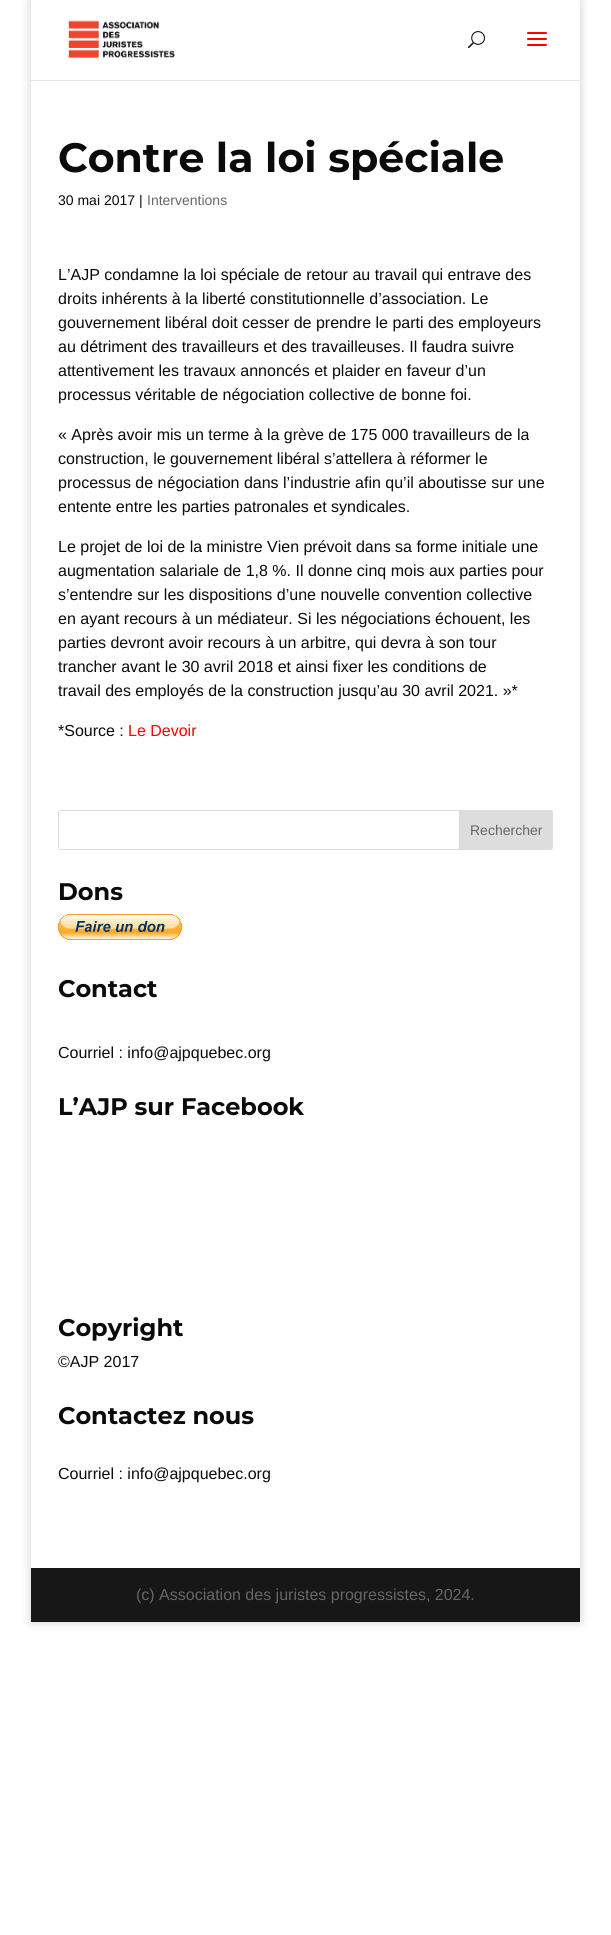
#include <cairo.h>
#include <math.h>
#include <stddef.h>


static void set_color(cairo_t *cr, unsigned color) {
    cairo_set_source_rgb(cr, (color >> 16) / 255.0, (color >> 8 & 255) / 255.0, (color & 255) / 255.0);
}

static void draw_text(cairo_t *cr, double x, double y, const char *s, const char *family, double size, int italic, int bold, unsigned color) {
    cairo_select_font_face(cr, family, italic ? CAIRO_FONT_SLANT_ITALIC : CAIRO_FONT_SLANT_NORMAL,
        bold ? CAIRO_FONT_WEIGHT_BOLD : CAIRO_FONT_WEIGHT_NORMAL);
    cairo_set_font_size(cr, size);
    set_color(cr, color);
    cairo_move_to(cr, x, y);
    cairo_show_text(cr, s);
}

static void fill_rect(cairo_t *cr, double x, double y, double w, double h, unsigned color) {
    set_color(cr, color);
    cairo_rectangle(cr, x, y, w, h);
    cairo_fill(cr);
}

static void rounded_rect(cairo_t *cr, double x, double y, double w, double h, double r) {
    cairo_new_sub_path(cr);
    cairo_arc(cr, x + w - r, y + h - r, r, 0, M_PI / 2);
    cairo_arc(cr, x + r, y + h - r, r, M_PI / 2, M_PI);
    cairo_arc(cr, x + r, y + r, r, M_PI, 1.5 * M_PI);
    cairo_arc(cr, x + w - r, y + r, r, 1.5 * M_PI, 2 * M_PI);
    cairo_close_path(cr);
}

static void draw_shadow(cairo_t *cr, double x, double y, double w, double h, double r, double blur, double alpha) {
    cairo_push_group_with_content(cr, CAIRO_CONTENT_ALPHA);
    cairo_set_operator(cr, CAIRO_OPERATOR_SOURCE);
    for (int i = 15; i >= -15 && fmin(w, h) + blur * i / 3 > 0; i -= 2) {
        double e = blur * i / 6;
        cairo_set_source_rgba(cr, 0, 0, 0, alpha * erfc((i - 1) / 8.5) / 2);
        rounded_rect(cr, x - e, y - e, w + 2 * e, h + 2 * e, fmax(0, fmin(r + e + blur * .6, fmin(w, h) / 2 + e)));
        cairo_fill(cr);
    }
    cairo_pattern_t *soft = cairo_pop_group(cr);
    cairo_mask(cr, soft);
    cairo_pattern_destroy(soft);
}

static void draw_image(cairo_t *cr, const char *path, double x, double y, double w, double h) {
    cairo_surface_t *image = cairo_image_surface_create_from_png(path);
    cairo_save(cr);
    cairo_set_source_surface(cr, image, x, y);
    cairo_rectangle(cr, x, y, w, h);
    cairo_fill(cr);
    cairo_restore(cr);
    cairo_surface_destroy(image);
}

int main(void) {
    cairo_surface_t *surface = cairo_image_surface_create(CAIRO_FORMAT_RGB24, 611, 1935);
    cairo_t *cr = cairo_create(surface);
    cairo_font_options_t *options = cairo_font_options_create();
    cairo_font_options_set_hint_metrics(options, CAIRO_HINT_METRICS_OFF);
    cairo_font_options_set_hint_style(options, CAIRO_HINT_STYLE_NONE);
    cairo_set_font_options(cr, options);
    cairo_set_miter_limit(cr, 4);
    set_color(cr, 0xFFFFFF);
    cairo_paint(cr);
    cairo_save(cr);
    cairo_set_fill_rule(cr, CAIRO_FILL_RULE_EVEN_ODD);
    cairo_new_path(cr);
    cairo_move_to(cr, 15, 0);
    cairo_line_to(cr, 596, 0);
    cairo_line_to(cr, 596, 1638);
    cairo_line_to(cr, 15, 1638);
    cairo_close_path(cr);
    cairo_move_to(cr, 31, 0);
    cairo_line_to(cr, 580, 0);
    cairo_line_to(cr, 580, 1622);
    cairo_line_to(cr, 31, 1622);
    cairo_close_path(cr);
    cairo_clip(cr);
    set_color(cr, 0x000000);
    draw_shadow(cr, 31, 0, 549, 1622, 0, 5, 0.2);
    cairo_restore(cr);
    fill_rect(cr, 31, 80, 549, 1, 0xE6E6E6);
    draw_image(cr, "assets/img1.png", 68, 20, 107, 39);
    draw_image(cr, "assets/img2.png", 468, 31, 17, 18);
    draw_image(cr, "assets/img3.png", 527, 32, 20, 14);
    draw_text(cr, 58, 172, "Contre la loi spéciale", "Montserrat", 41, 0, 1, 0x0A0A0A);
    draw_text(cr, 58, 205, "30 mai 2017 |", "Liberation Sans", 14, 0, 0, 0x0A0A0A);
    draw_text(cr, 147, 205, "Interventions", "Liberation Sans", 14, 0, 0, 0x666666);
    draw_text(cr, 58, 280, "L’AJP condamne la loi spéciale de retour au travail qui entrave des", "Liberation Sans", 16, 0, 0, 0x0A0A0A);
    draw_text(cr, 58, 304, "droits inhérents à la liberté constitutionnelle d’association. Le", "Liberation Sans", 16, 0, 0, 0x0A0A0A);
    draw_text(cr, 58, 328, "gouvernement libéral doit cesser de prendre le parti des employeurs", "Liberation Sans", 16, 0, 0, 0x0A0A0A);
    draw_text(cr, 58, 352, "au détriment des travailleurs et des travailleuses. Il faudra suivre", "Liberation Sans", 16, 0, 0, 0x0A0A0A);
    draw_text(cr, 58, 376, "attentivement les travaux annoncés et plaider en faveur d’un", "Liberation Sans", 16, 0, 0, 0x0A0A0A);
    draw_text(cr, 58, 400, "processus véritable de négociation collective de bonne foi.", "Liberation Sans", 16, 0, 0, 0x0A0A0A);
    draw_text(cr, 58, 440, "« Après avoir mis un terme à la grève de 175 000 travailleurs de la", "Liberation Sans", 16, 0, 0, 0x0A0A0A);
    draw_text(cr, 58, 464, "construction, le gouvernement libéral s’attellera à réformer le", "Liberation Sans", 16, 0, 0, 0x0A0A0A);
    draw_text(cr, 58, 488, "processus de négociation dans l’industrie afin qu’il aboutisse sur une", "Liberation Sans", 16, 0, 0, 0x0A0A0A);
    draw_text(cr, 58, 512, "entente entre les parties patronales et syndicales.", "Liberation Sans", 16, 0, 0, 0x0A0A0A);
    draw_text(cr, 58, 552, "Le projet de loi de la ministre Vien prévoit dans sa forme initiale une", "Liberation Sans", 16, 0, 0, 0x0A0A0A);
    draw_text(cr, 58, 576, "augmentation salariale de 1,8 %. Il donne cinq mois aux parties pour", "Liberation Sans", 16, 0, 0, 0x0A0A0A);
    draw_text(cr, 58, 600, "s’entendre sur les dispositions d’une nouvelle convention collective", "Liberation Sans", 16, 0, 0, 0x0A0A0A);
    draw_text(cr, 58, 624, "en ayant recours à un médiateur. Si les négociations échouent, les", "Liberation Sans", 16, 0, 0, 0x0A0A0A);
    draw_text(cr, 58, 648, "parties devront avoir recours à un arbitre, qui devra à son tour", "Liberation Sans", 16, 0, 0, 0x0A0A0A);
    draw_text(cr, 58, 672, "trancher avant le 30 avril 2018 et ainsi fixer les conditions de", "Liberation Sans", 16, 0, 0, 0x0A0A0A);
    draw_text(cr, 58, 696, "travail des employés de la construction jusqu’au 30 avril 2021. »*", "Liberation Sans", 16, 0, 0, 0x0A0A0A);
    draw_text(cr, 58, 736, "*Source :", "Liberation Sans", 16, 0, 0, 0x0A0A0A);
    draw_text(cr, 128, 736, "Le Devoir", "Liberation Sans", 16, 0, 0, 0xFF0000);
    rounded_rect(cr, 58.5, 810.5, 494, 39, 2.5);
    set_color(cr, 0xDDDDDD);
    cairo_set_line_width(cr, 1);
    cairo_stroke(cr);
    cairo_new_path(cr);
    cairo_move_to(cr, 459.5, 810.5);
    cairo_line_to(cr, 550, 810.5);
    cairo_curve_to(cr, 551.5, 810.5, 552.5, 811.5, 552.5, 813);
    cairo_line_to(cr, 552.5, 847);
    cairo_curve_to(cr, 552.5, 848.5, 551.5, 849.5, 550, 849.5);
    cairo_line_to(cr, 459.5, 849.5);
    cairo_close_path(cr);
    cairo_fill_preserve(cr);
    cairo_stroke(cr);
    draw_text(cr, 470, 835, "Rechercher", "Liberation Sans", 14, 0, 0, 0x666666);
    draw_text(cr, 58, 900, "Dons", "Montserrat", 24, 0, 1, 0x0A0A0A);
    draw_image(cr, "assets/img4.png", 58, 914, 124, 26);
    draw_text(cr, 58, 997, "Contact", "Montserrat", 24, 0, 1, 0x0A0A0A);
    draw_text(cr, 58, 1058, "Courriel : info@ajpquebec.org", "Liberation Sans", 16, 0, 0, 0x0A0A0A);
    draw_text(cr, 58, 1115, "L’AJP sur Facebook", "Montserrat", 24, 0, 1, 0x0A0A0A);
    draw_text(cr, 58, 1336, "Copyright", "Montserrat", 24, 0, 1, 0x0A0A0A);
    draw_text(cr, 58, 1367, "©AJP 2017", "Liberation Sans", 16, 0, 0, 0x0A0A0A);
    draw_text(cr, 58, 1424, "Contactez nous", "Montserrat", 24, 0, 1, 0x0A0A0A);
    draw_text(cr, 58, 1479, "Courriel : info@ajpquebec.org", "Liberation Sans", 16, 0, 0, 0x0A0A0A);
    fill_rect(cr, 31, 1568, 549, 54, 0x171717);
    draw_text(cr, 136, 1600, "(c) Association des juristes progressistes, 2024.", "Liberation Sans", 16, 0, 0, 0x666666);
    cairo_surface_write_to_png(surface, "output.png");
    cairo_font_options_destroy(options);
    cairo_destroy(cr);
    cairo_surface_destroy(surface);
    return 0;
}
